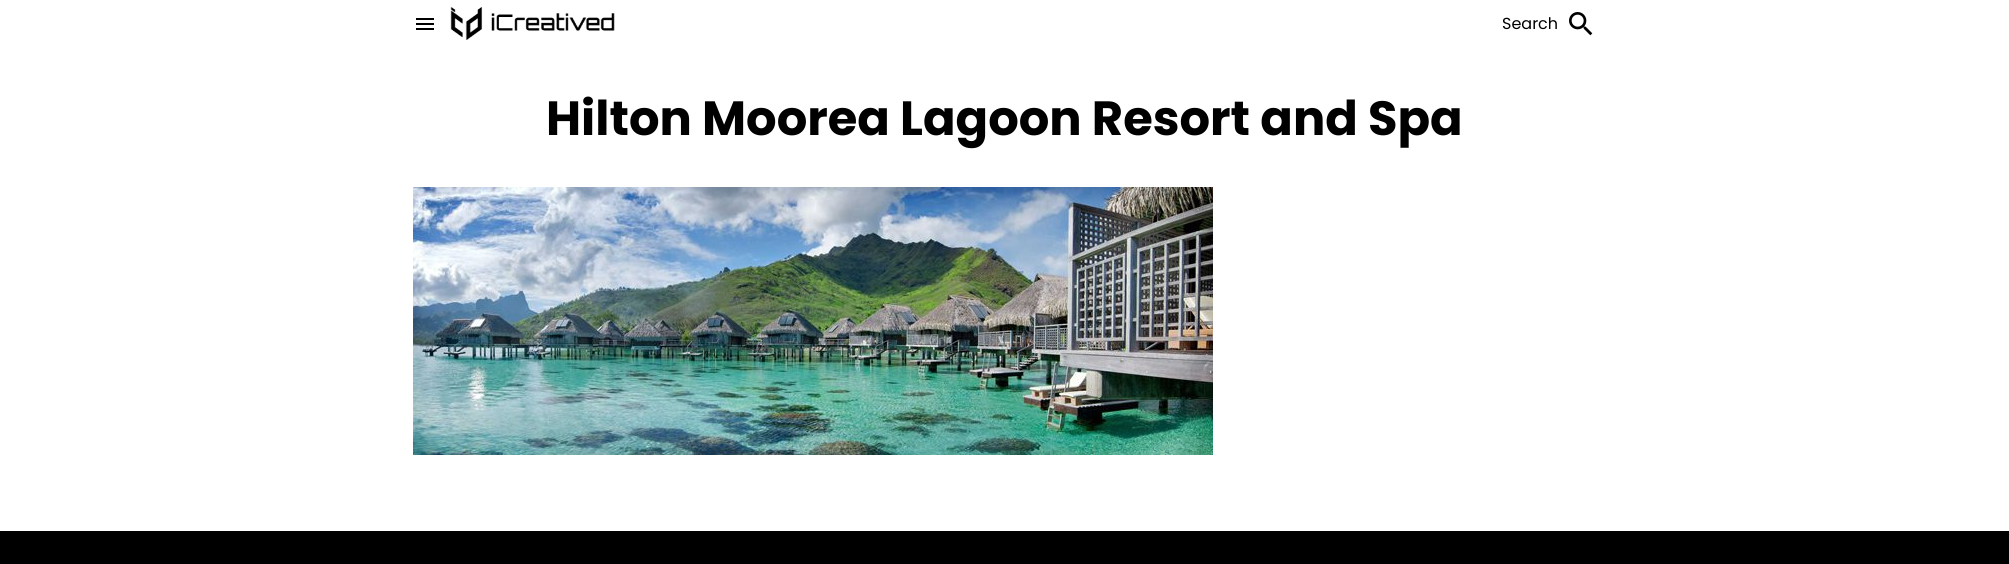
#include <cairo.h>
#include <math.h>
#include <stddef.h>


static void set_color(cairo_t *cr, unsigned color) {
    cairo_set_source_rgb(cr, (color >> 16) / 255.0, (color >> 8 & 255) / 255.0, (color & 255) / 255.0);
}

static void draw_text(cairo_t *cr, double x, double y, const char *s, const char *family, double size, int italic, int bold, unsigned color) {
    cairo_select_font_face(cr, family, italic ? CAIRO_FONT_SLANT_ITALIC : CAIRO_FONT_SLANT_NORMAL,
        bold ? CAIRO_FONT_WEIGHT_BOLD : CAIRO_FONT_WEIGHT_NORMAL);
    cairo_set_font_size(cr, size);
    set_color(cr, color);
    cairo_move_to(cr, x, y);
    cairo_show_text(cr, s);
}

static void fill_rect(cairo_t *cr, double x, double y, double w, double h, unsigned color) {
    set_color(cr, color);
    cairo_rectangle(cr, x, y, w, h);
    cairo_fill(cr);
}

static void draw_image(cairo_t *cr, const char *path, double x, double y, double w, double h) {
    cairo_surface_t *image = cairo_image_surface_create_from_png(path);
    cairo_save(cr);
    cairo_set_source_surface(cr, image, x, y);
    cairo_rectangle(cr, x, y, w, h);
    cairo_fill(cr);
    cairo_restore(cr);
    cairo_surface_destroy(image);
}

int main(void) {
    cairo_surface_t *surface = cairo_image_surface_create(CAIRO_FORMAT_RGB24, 2009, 564);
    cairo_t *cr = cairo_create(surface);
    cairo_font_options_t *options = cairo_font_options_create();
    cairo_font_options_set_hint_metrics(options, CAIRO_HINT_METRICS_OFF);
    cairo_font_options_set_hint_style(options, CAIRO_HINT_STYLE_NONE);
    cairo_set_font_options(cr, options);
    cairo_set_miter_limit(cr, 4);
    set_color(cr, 0xFFFFFF);
    cairo_paint(cr);
    draw_image(cr, "assets/img1.png", 416, 18, 18, 12);
    draw_image(cr, "assets/img2.png", 450, 7, 165, 33);
    draw_text(cr, 1502, 29, "Search", "Poppins", 16, 0, 0, 0x000000);
    draw_image(cr, "assets/img3.png", 1569, 12, 24, 24);
    draw_text(cr, 546, 135, "Hilton Moorea Lagoon Resort and Spa", "Poppins", 48, 0, 1, 0x000000);
    draw_image(cr, "assets/img4.png", 413, 187, 800, 268);
    fill_rect(cr, 0, 531, 2009, 33, 0x000000);
    cairo_surface_write_to_png(surface, "output.png");
    cairo_font_options_destroy(options);
    cairo_destroy(cr);
    cairo_surface_destroy(surface);
    return 0;
}
